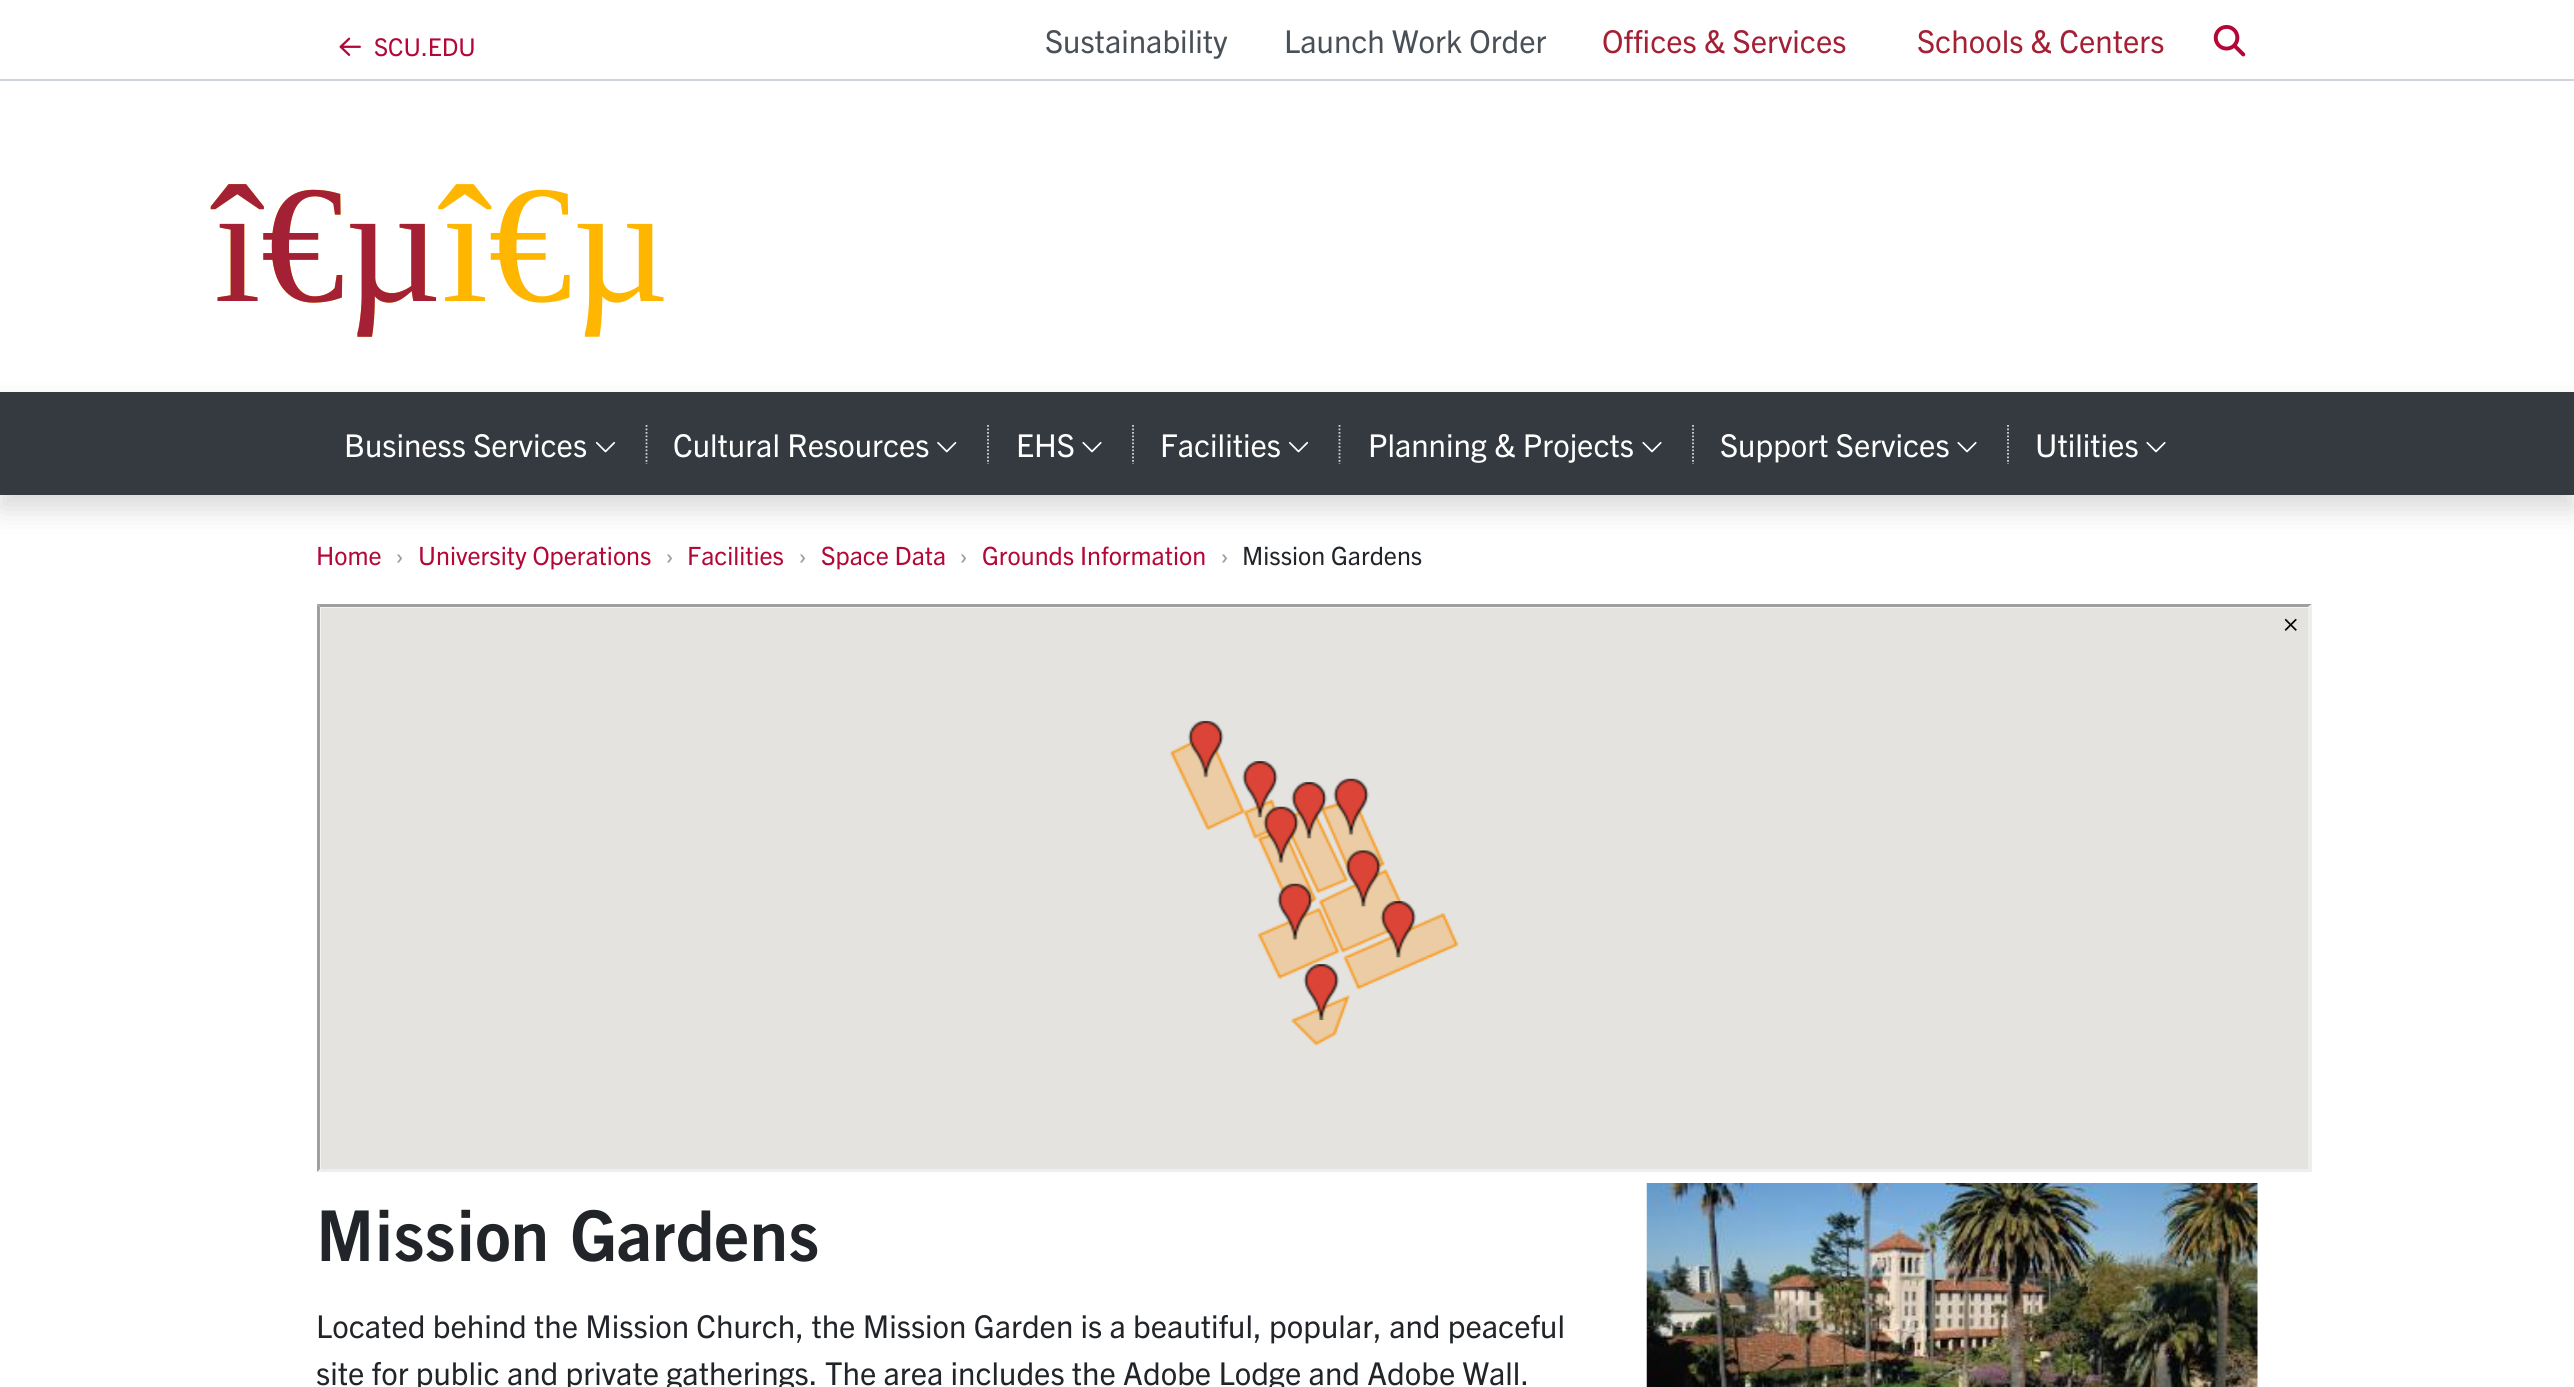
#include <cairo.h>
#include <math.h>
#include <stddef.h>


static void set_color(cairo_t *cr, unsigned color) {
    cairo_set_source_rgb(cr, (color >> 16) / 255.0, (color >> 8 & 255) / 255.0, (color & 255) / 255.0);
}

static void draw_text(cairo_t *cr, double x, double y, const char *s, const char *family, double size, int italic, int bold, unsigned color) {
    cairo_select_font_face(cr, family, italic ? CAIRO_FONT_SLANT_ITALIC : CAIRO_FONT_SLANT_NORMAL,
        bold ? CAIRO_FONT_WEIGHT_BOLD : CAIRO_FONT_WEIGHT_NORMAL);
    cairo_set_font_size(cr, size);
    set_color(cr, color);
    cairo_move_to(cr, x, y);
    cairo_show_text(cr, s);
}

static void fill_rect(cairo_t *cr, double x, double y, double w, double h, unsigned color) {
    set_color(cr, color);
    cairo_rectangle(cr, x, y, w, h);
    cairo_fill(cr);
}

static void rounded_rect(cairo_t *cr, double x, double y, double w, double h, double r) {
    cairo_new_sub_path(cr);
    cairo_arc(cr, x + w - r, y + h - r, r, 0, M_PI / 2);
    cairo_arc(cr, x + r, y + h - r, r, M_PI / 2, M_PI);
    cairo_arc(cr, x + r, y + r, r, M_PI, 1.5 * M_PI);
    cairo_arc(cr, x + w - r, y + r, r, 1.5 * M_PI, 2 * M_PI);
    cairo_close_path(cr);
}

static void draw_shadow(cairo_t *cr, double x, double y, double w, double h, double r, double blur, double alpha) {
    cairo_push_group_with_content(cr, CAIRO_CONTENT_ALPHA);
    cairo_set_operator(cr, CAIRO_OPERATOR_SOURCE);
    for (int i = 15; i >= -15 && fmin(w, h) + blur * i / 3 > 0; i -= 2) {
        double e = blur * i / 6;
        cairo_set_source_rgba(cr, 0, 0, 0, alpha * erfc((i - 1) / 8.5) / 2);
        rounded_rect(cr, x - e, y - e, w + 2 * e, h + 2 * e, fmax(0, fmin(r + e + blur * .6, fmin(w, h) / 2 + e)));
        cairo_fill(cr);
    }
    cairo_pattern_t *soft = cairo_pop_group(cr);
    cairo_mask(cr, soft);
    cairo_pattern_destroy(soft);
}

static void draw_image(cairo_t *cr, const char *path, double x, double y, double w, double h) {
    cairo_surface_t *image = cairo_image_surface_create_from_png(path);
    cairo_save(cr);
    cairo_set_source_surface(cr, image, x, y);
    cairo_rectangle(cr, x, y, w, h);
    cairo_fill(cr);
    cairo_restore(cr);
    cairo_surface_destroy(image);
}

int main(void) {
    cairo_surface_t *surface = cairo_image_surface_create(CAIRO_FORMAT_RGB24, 2574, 1387);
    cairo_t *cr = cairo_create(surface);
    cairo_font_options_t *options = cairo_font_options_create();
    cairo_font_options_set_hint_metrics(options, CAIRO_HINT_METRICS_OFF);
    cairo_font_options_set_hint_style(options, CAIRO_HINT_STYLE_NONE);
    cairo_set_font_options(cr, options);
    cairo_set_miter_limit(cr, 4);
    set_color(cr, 0xFFFFFF);
    cairo_paint(cr);
    fill_rect(cr, 0, 79, 2574, 2, 0xCED4DA);
    draw_image(cr, "assets/img1.png", 339, 37, 22, 19);
    draw_text(cr, 374, 56, "SCU.EDU", "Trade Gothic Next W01", 24.5, 0, 0, 0xB30738);
    draw_text(cr, 1045, 53, "Sustainability", "Trade Gothic Next W01", 31.5, 0, 0, 0x495057);
    draw_text(cr, 1284, 53, "Launch Work Order", "Trade Gothic Next W01", 31.5, 0, 0, 0x495057);
    draw_text(cr, 1602, 53, "Offices & Services", "Trade Gothic Next W01", 31.5, 0, 0, 0xA32035);
    draw_text(cr, 1917, 53, "Schools & Centers", "Trade Gothic Next W01", 31.5, 0, 0, 0xA32035);
    draw_image(cr, "assets/img2.png", 2213, 24, 33, 33);
    draw_text(cr, 214, 301, "î€µî€µ", "Liberation Serif", 168, 0, 0, 0xFFB600);
    draw_text(cr, 214, 301, "î€µ", "Liberation Serif", 168, 0, 0, 0xA32035);
    set_color(cr, 0x000000);
    draw_shadow(cr, 0, 406, 2574, 103, 0, 14, 0.15);
    fill_rect(cr, 0, 392, 2574, 103, 0x343A40);
    draw_text(cr, 344, 457, "Business Services", "Trade Gothic Next W01", 31.5, 0, 0, 0xFFFFFF);
    draw_image(cr, "assets/img3.png", 595, 441, 21, 12);
    cairo_new_path(cr);
    cairo_move_to(cr, 646.5, 425);
    cairo_line_to(cr, 646.5, 464);
    set_color(cr, 0xCED4DA);
    cairo_set_line_width(cr, 1.8);
    cairo_set_dash(cr, (double[]){1.75, 1.75}, 2, 0);
    cairo_stroke(cr);
    draw_text(cr, 673, 457, "Cultural Resources", "Trade Gothic Next W01", 31.5, 0, 0, 0xFFFFFF);
    draw_image(cr, "assets/img4.png", 937, 441, 20, 12);
    cairo_new_path(cr);
    cairo_move_to(cr, 988, 425);
    cairo_line_to(cr, 988, 464);
    set_color(cr, 0xCED4DA);
    cairo_stroke(cr);
    draw_text(cr, 1016, 457, "EHS", "Trade Gothic Next W01", 31.5, 0, 0, 0xFFFFFF);
    draw_image(cr, "assets/img5.png", 1082, 441, 20, 12);
    cairo_new_path(cr);
    cairo_move_to(cr, 1133, 425);
    cairo_line_to(cr, 1133, 464);
    set_color(cr, 0xCED4DA);
    cairo_stroke(cr);
    draw_text(cr, 1160, 457, "Facilities", "Trade Gothic Next W01", 31.5, 0, 0, 0xFFFFFF);
    draw_image(cr, "assets/img3.png", 1288, 441, 21, 12);
    cairo_new_path(cr);
    cairo_move_to(cr, 1339.5, 425);
    cairo_line_to(cr, 1339.5, 464);
    set_color(cr, 0xCED4DA);
    cairo_stroke(cr);
    draw_text(cr, 1368, 457, "Planning & Projects", "Trade Gothic Next W01", 31.5, 0, 0, 0xFFFFFF);
    draw_image(cr, "assets/img5.png", 1642, 441, 20, 12);
    cairo_new_path(cr);
    cairo_move_to(cr, 1693, 425);
    cairo_line_to(cr, 1693, 464);
    set_color(cr, 0xCED4DA);
    cairo_stroke(cr);
    draw_text(cr, 1720, 457, "Support Services", "Trade Gothic Next W01", 31.5, 0, 0, 0xFFFFFF);
    draw_image(cr, "assets/img5.png", 1957, 441, 20, 12);
    cairo_new_path(cr);
    cairo_move_to(cr, 2008, 425);
    cairo_line_to(cr, 2008, 464);
    set_color(cr, 0xCED4DA);
    cairo_stroke(cr);
    draw_text(cr, 2035, 457, "Utilities", "Trade Gothic Next W01", 31.5, 0, 0, 0xFFFFFF);
    draw_image(cr, "assets/img5.png", 2146, 441, 20, 12);
    draw_text(cr, 316, 565, "Home", "Trade Gothic Next W01", 25.25, 0, 0, 0xB30738);
    draw_text(cr, 395, 565, "›", "Trade Gothic Next W01", 25.25, 0, 0, 0x989EA4);
    draw_text(cr, 418, 565, "University Operations", "Trade Gothic Next W01", 25.25, 0, 0, 0xB30738);
    draw_text(cr, 665, 565, "›", "Trade Gothic Next W01", 25.25, 0, 0, 0x989EA4);
    draw_text(cr, 687, 565, "Facilities", "Trade Gothic Next W01", 25.25, 0, 0, 0xB30738);
    draw_text(cr, 798, 565, "›", "Trade Gothic Next W01", 25.25, 0, 0, 0x989EA4);
    draw_text(cr, 821, 565, "Space Data", "Trade Gothic Next W01", 25.25, 0, 0, 0xB30738);
    draw_text(cr, 959, 565, "›", "Trade Gothic Next W01", 25.25, 0, 0, 0x989EA4);
    draw_text(cr, 982, 565, "Grounds Information", "Trade Gothic Next W01", 25.25, 0, 0, 0xB30738);
    draw_text(cr, 1220, 565, "›", "Trade Gothic Next W01", 25.25, 0, 0, 0x989EA4);
    draw_text(cr, 1242, 565, "Mission Gardens", "Trade Gothic Next W01", 25.25, 0, 0, 0x212529);
    set_color(cr, 0x9F9F9F);
    cairo_new_path(cr);
    cairo_move_to(cr, 317, 604);
    cairo_line_to(cr, 2312, 604);
    cairo_line_to(cr, 2308, 607);
    cairo_line_to(cr, 320, 607);
    cairo_close_path(cr);
    cairo_fill(cr);
    set_color(cr, 0xEEEEEE);
    cairo_new_path(cr);
    cairo_move_to(cr, 2312, 604);
    cairo_line_to(cr, 2312, 1172);
    cairo_line_to(cr, 2308, 1169);
    cairo_line_to(cr, 2308, 607);
    cairo_close_path(cr);
    cairo_fill(cr);
    cairo_new_path(cr);
    cairo_move_to(cr, 2312, 1172);
    cairo_line_to(cr, 317, 1172);
    cairo_line_to(cr, 320, 1169);
    cairo_line_to(cr, 2308, 1169);
    cairo_close_path(cr);
    cairo_fill(cr);
    set_color(cr, 0x9F9F9F);
    cairo_new_path(cr);
    cairo_move_to(cr, 317, 1172);
    cairo_line_to(cr, 317, 604);
    cairo_line_to(cr, 320, 607);
    cairo_line_to(cr, 320, 1169);
    cairo_close_path(cr);
    cairo_fill(cr);
    draw_image(cr, "assets/img6.png", 320, 607, 1988, 562);
    draw_text(cr, 316, 1261, "Mission Gardens", "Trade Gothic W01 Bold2", 70, 0, 1, 0x212529);
    draw_text(cr, 316, 1338, "Located behind the Mission Church, the Mission Garden is a beautiful, popular, and peaceful", "Trade Gothic Next W01", 31.5, 0, 0, 0x212529);
    draw_text(cr, 316, 1385, "site for public and private gatherings. The area includes the Adobe Lodge and Adobe Wall.", "Trade Gothic Next W01", 31.5, 0, 0, 0x212529);
    draw_image(cr, "assets/img7.png", 1646, 1183, 612, 204);
    cairo_surface_write_to_png(surface, "output.png");
    cairo_font_options_destroy(options);
    cairo_destroy(cr);
    cairo_surface_destroy(surface);
    return 0;
}
